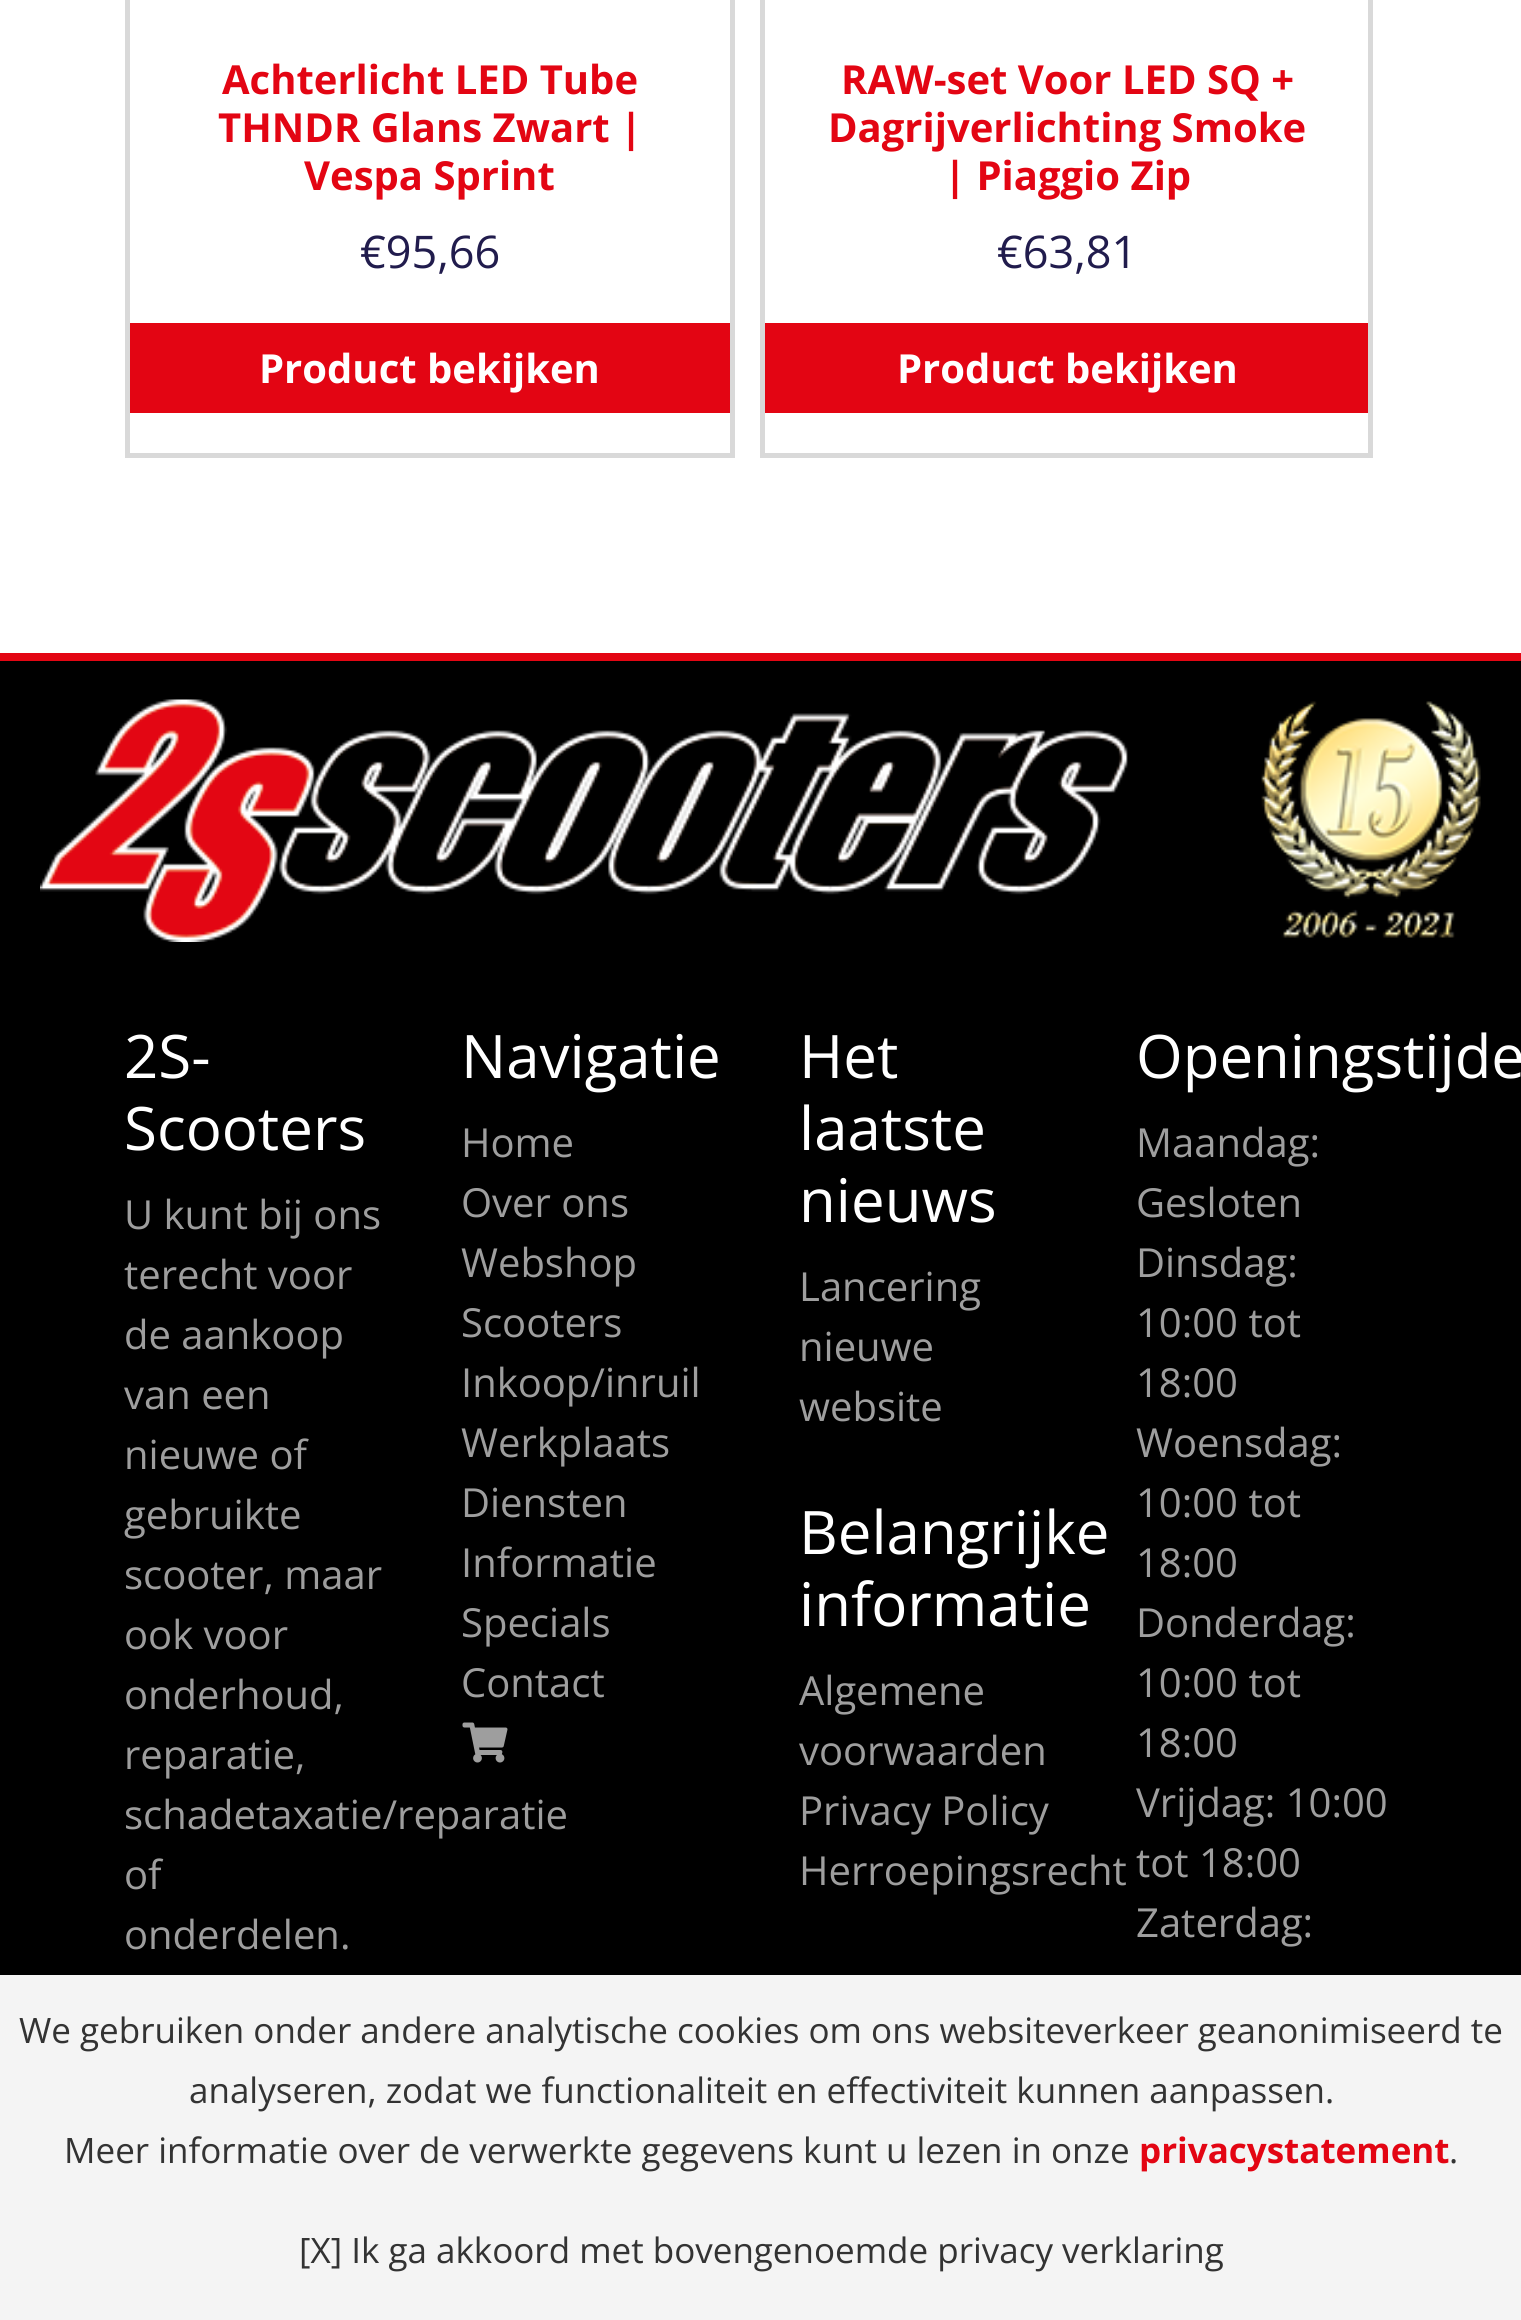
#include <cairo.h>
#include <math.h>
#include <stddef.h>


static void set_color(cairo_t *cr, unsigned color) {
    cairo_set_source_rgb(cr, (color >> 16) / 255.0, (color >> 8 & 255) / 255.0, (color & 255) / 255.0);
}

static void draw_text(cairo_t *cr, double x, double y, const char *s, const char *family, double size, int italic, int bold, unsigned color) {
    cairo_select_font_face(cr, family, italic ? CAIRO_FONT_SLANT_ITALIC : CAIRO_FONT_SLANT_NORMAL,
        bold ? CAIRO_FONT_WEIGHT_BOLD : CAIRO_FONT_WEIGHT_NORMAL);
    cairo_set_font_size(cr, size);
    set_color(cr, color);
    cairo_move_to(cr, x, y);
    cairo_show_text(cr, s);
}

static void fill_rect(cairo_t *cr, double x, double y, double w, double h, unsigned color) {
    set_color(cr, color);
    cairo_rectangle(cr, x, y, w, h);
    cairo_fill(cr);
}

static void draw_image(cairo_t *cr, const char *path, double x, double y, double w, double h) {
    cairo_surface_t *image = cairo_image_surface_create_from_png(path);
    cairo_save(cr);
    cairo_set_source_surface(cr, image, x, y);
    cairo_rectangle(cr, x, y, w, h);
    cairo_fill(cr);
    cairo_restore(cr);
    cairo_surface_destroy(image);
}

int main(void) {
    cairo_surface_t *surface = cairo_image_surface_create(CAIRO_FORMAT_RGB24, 1521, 2320);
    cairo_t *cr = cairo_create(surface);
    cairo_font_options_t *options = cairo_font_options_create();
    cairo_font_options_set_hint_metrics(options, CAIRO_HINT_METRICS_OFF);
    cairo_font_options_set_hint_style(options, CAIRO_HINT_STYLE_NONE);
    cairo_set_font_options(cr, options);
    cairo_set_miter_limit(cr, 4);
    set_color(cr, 0xFFFFFF);
    cairo_paint(cr);
    cairo_rectangle(cr, 127.5, -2.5, 605, 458);
    set_color(cr, 0xD9D9D9);
    cairo_set_line_width(cr, 5);
    cairo_stroke(cr);
    draw_text(cr, 222, 94, "Achterlicht LED Tube", "Open Sans", 40, 0, 1, 0xE30513);
    draw_text(cr, 218, 142, "THNDR Glans Zwart |", "Open Sans", 40, 0, 1, 0xE30513);
    draw_text(cr, 304, 190, "Vespa Sprint", "Open Sans", 40, 0, 1, 0xE30513);
    draw_text(cr, 360, 268, "€95,66", "Open Sans", 45, 0, 0, 0x211C4D);
    fill_rect(cr, 130, 323, 600, 90, 0xE30513);
    draw_text(cr, 259, 383, "Product bekijken", "Open Sans", 40, 0, 1, 0xFFFFFF);
    cairo_rectangle(cr, 762.5, -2.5, 608, 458);
    set_color(cr, 0xD9D9D9);
    cairo_stroke(cr);
    draw_text(cr, 841, 94, "RAW-set Voor LED SQ +", "Open Sans", 40, 0, 1, 0xE30513);
    draw_text(cr, 828, 142, "Dagrijverlichting Smoke", "Open Sans", 40, 0, 1, 0xE30513);
    draw_text(cr, 944, 190, "| Piaggio Zip", "Open Sans", 40, 0, 1, 0xE30513);
    draw_text(cr, 997, 268, "€63,81", "Open Sans", 45, 0, 0, 0x211C4D);
    fill_rect(cr, 765, 323, 603, 90, 0xE30513);
    draw_text(cr, 897, 383, "Product bekijken", "Open Sans", 40, 0, 1, 0xFFFFFF);
    fill_rect(cr, 0, 661, 1521, 1314, 0x000000);
    fill_rect(cr, 0, 653, 1521, 8, 0xE30613);
    draw_image(cr, "assets/img1.png", 40, 699, 1441, 243);
    draw_text(cr, 124, 1078, "2S-", "Open Sans", 60, 0, 0, 0xFFFFFF);
    draw_text(cr, 124, 1150, "Scooters", "Open Sans", 60, 0, 0, 0xFFFFFF);
    draw_text(cr, 124, 1229, "U kunt bij ons", "Open Sans", 40, 0, 0, 0x9E9E9E);
    draw_text(cr, 124, 1289, "terecht voor", "Open Sans", 40, 0, 0, 0x9E9E9E);
    draw_text(cr, 124, 1349, "de aankoop", "Open Sans", 40, 0, 0, 0x9E9E9E);
    draw_text(cr, 124, 1409, "van een", "Open Sans", 40, 0, 0, 0x9E9E9E);
    draw_text(cr, 124, 1469, "nieuwe of", "Open Sans", 40, 0, 0, 0x9E9E9E);
    draw_text(cr, 124, 1529, "gebruikte", "Open Sans", 40, 0, 0, 0x9E9E9E);
    draw_text(cr, 124, 1589, "scooter, maar", "Open Sans", 40, 0, 0, 0x9E9E9E);
    draw_text(cr, 124, 1649, "ook voor", "Open Sans", 40, 0, 0, 0x9E9E9E);
    draw_text(cr, 124, 1709, "onderhoud,", "Open Sans", 40, 0, 0, 0x9E9E9E);
    draw_text(cr, 124, 1769, "reparatie,", "Open Sans", 40, 0, 0, 0x9E9E9E);
    draw_text(cr, 124, 1829, "schadetaxatie/reparatie", "Open Sans", 40, 0, 0, 0x9E9E9E);
    draw_text(cr, 124, 1889, "of", "Open Sans", 40, 0, 0, 0x9E9E9E);
    draw_text(cr, 124, 1949, "onderdelen.", "Open Sans", 40, 0, 0, 0x9E9E9E);
    draw_text(cr, 461, 1078, "Navigatie", "Open Sans", 60, 0, 0, 0xFFFFFF);
    draw_text(cr, 461, 1157, "Home", "Open Sans", 40, 0, 0, 0x9E9E9E);
    draw_text(cr, 461, 1217, "Over ons", "Open Sans", 40, 0, 0, 0x9E9E9E);
    draw_text(cr, 461, 1277, "Webshop", "Open Sans", 40, 0, 0, 0x9E9E9E);
    draw_text(cr, 461, 1337, "Scooters", "Open Sans", 40, 0, 0, 0x9E9E9E);
    draw_text(cr, 461, 1397, "Inkoop/inruil", "Open Sans", 40, 0, 0, 0x9E9E9E);
    draw_text(cr, 461, 1457, "Werkplaats", "Open Sans", 40, 0, 0, 0x9E9E9E);
    draw_text(cr, 461, 1517, "Diensten", "Open Sans", 40, 0, 0, 0x9E9E9E);
    draw_text(cr, 461, 1577, "Informatie", "Open Sans", 40, 0, 0, 0x9E9E9E);
    draw_text(cr, 461, 1637, "Specials", "Open Sans", 40, 0, 0, 0x9E9E9E);
    draw_text(cr, 461, 1697, "Contact", "Open Sans", 40, 0, 0, 0x9E9E9E);
    draw_image(cr, "assets/img2.png", 462, 1722, 46, 41);
    draw_text(cr, 799, 1078, "Het", "Open Sans", 60, 0, 0, 0xFFFFFF);
    draw_text(cr, 799, 1150, "laatste", "Open Sans", 60, 0, 0, 0xFFFFFF);
    draw_text(cr, 799, 1222, "nieuws", "Open Sans", 60, 0, 0, 0xFFFFFF);
    draw_text(cr, 799, 1301, "Lancering", "Open Sans", 40, 0, 0, 0x9E9E9E);
    draw_text(cr, 799, 1361, "nieuwe", "Open Sans", 40, 0, 0, 0x9E9E9E);
    draw_text(cr, 799, 1421, "website", "Open Sans", 40, 0, 0, 0x9E9E9E);
    draw_text(cr, 799, 1554, "Belangrijke", "Open Sans", 60, 0, 0, 0xFFFFFF);
    draw_text(cr, 799, 1626, "informatie", "Open Sans", 60, 0, 0, 0xFFFFFF);
    draw_text(cr, 799, 1705, "Algemene", "Open Sans", 40, 0, 0, 0x9E9E9E);
    draw_text(cr, 799, 1765, "voorwaarden", "Open Sans", 40, 0, 0, 0x9E9E9E);
    draw_text(cr, 799, 1825, "Privacy Policy", "Open Sans", 40, 0, 0, 0x9E9E9E);
    draw_text(cr, 799, 1885, "Herroepingsrecht", "Open Sans", 40, 0, 0, 0x9E9E9E);
    draw_text(cr, 1136, 1078, "Openingstijde", "Open Sans", 60, 0, 0, 0xFFFFFF);
    draw_text(cr, 1136, 1157, "Maandag:", "Open Sans", 40, 0, 0, 0x9E9E9E);
    draw_text(cr, 1136, 1217, "Gesloten", "Open Sans", 40, 0, 0, 0x9E9E9E);
    draw_text(cr, 1136, 1277, "Dinsdag:", "Open Sans", 40, 0, 0, 0x9E9E9E);
    draw_text(cr, 1136, 1337, "10:00 tot", "Open Sans", 40, 0, 0, 0x9E9E9E);
    draw_text(cr, 1136, 1397, "18:00", "Open Sans", 40, 0, 0, 0x9E9E9E);
    draw_text(cr, 1136, 1457, "Woensdag:", "Open Sans", 40, 0, 0, 0x9E9E9E);
    draw_text(cr, 1136, 1517, "10:00 tot", "Open Sans", 40, 0, 0, 0x9E9E9E);
    draw_text(cr, 1136, 1577, "18:00", "Open Sans", 40, 0, 0, 0x9E9E9E);
    draw_text(cr, 1136, 1637, "Donderdag:", "Open Sans", 40, 0, 0, 0x9E9E9E);
    draw_text(cr, 1136, 1697, "10:00 tot", "Open Sans", 40, 0, 0, 0x9E9E9E);
    draw_text(cr, 1136, 1757, "18:00", "Open Sans", 40, 0, 0, 0x9E9E9E);
    draw_text(cr, 1136, 1817, "Vrijdag: 10:00", "Open Sans", 40, 0, 0, 0x9E9E9E);
    draw_text(cr, 1136, 1877, "tot 18:00", "Open Sans", 40, 0, 0, 0x9E9E9E);
    draw_text(cr, 1136, 1937, "Zaterdag:", "Open Sans", 40, 0, 0, 0x9E9E9E);
    fill_rect(cr, 0, 1975, 1521, 345, 0xF4F4F4);
    draw_text(cr, 19, 2043, "We gebruiken onder andere analytische cookies om ons websiteverkeer geanonimiseerd te", "Open Sans", 35, 0, 0, 0x333333);
    draw_text(cr, 189, 2103, "analyseren, zodat we functionaliteit en effectiviteit kunnen aanpassen.", "Open Sans", 35, 0, 0, 0x333333);
    draw_text(cr, 64, 2163, "Meer informatie over de verwerkte gegevens kunt u lezen in onze", "Open Sans", 35, 0, 0, 0x333333);
    draw_text(cr, 1139, 2163, "privacystatement", "Open Sans", 35, 0, 1, 0xE30513);
    draw_text(cr, 1449, 2163, ".", "Open Sans", 35, 0, 0, 0x333333);
    draw_text(cr, 299, 2263, "[X] Ik ga akkoord met bovengenoemde privacy verklaring", "Open Sans", 35, 0, 0, 0x333333);
    cairo_surface_write_to_png(surface, "output.png");
    cairo_font_options_destroy(options);
    cairo_destroy(cr);
    cairo_surface_destroy(surface);
    return 0;
}
